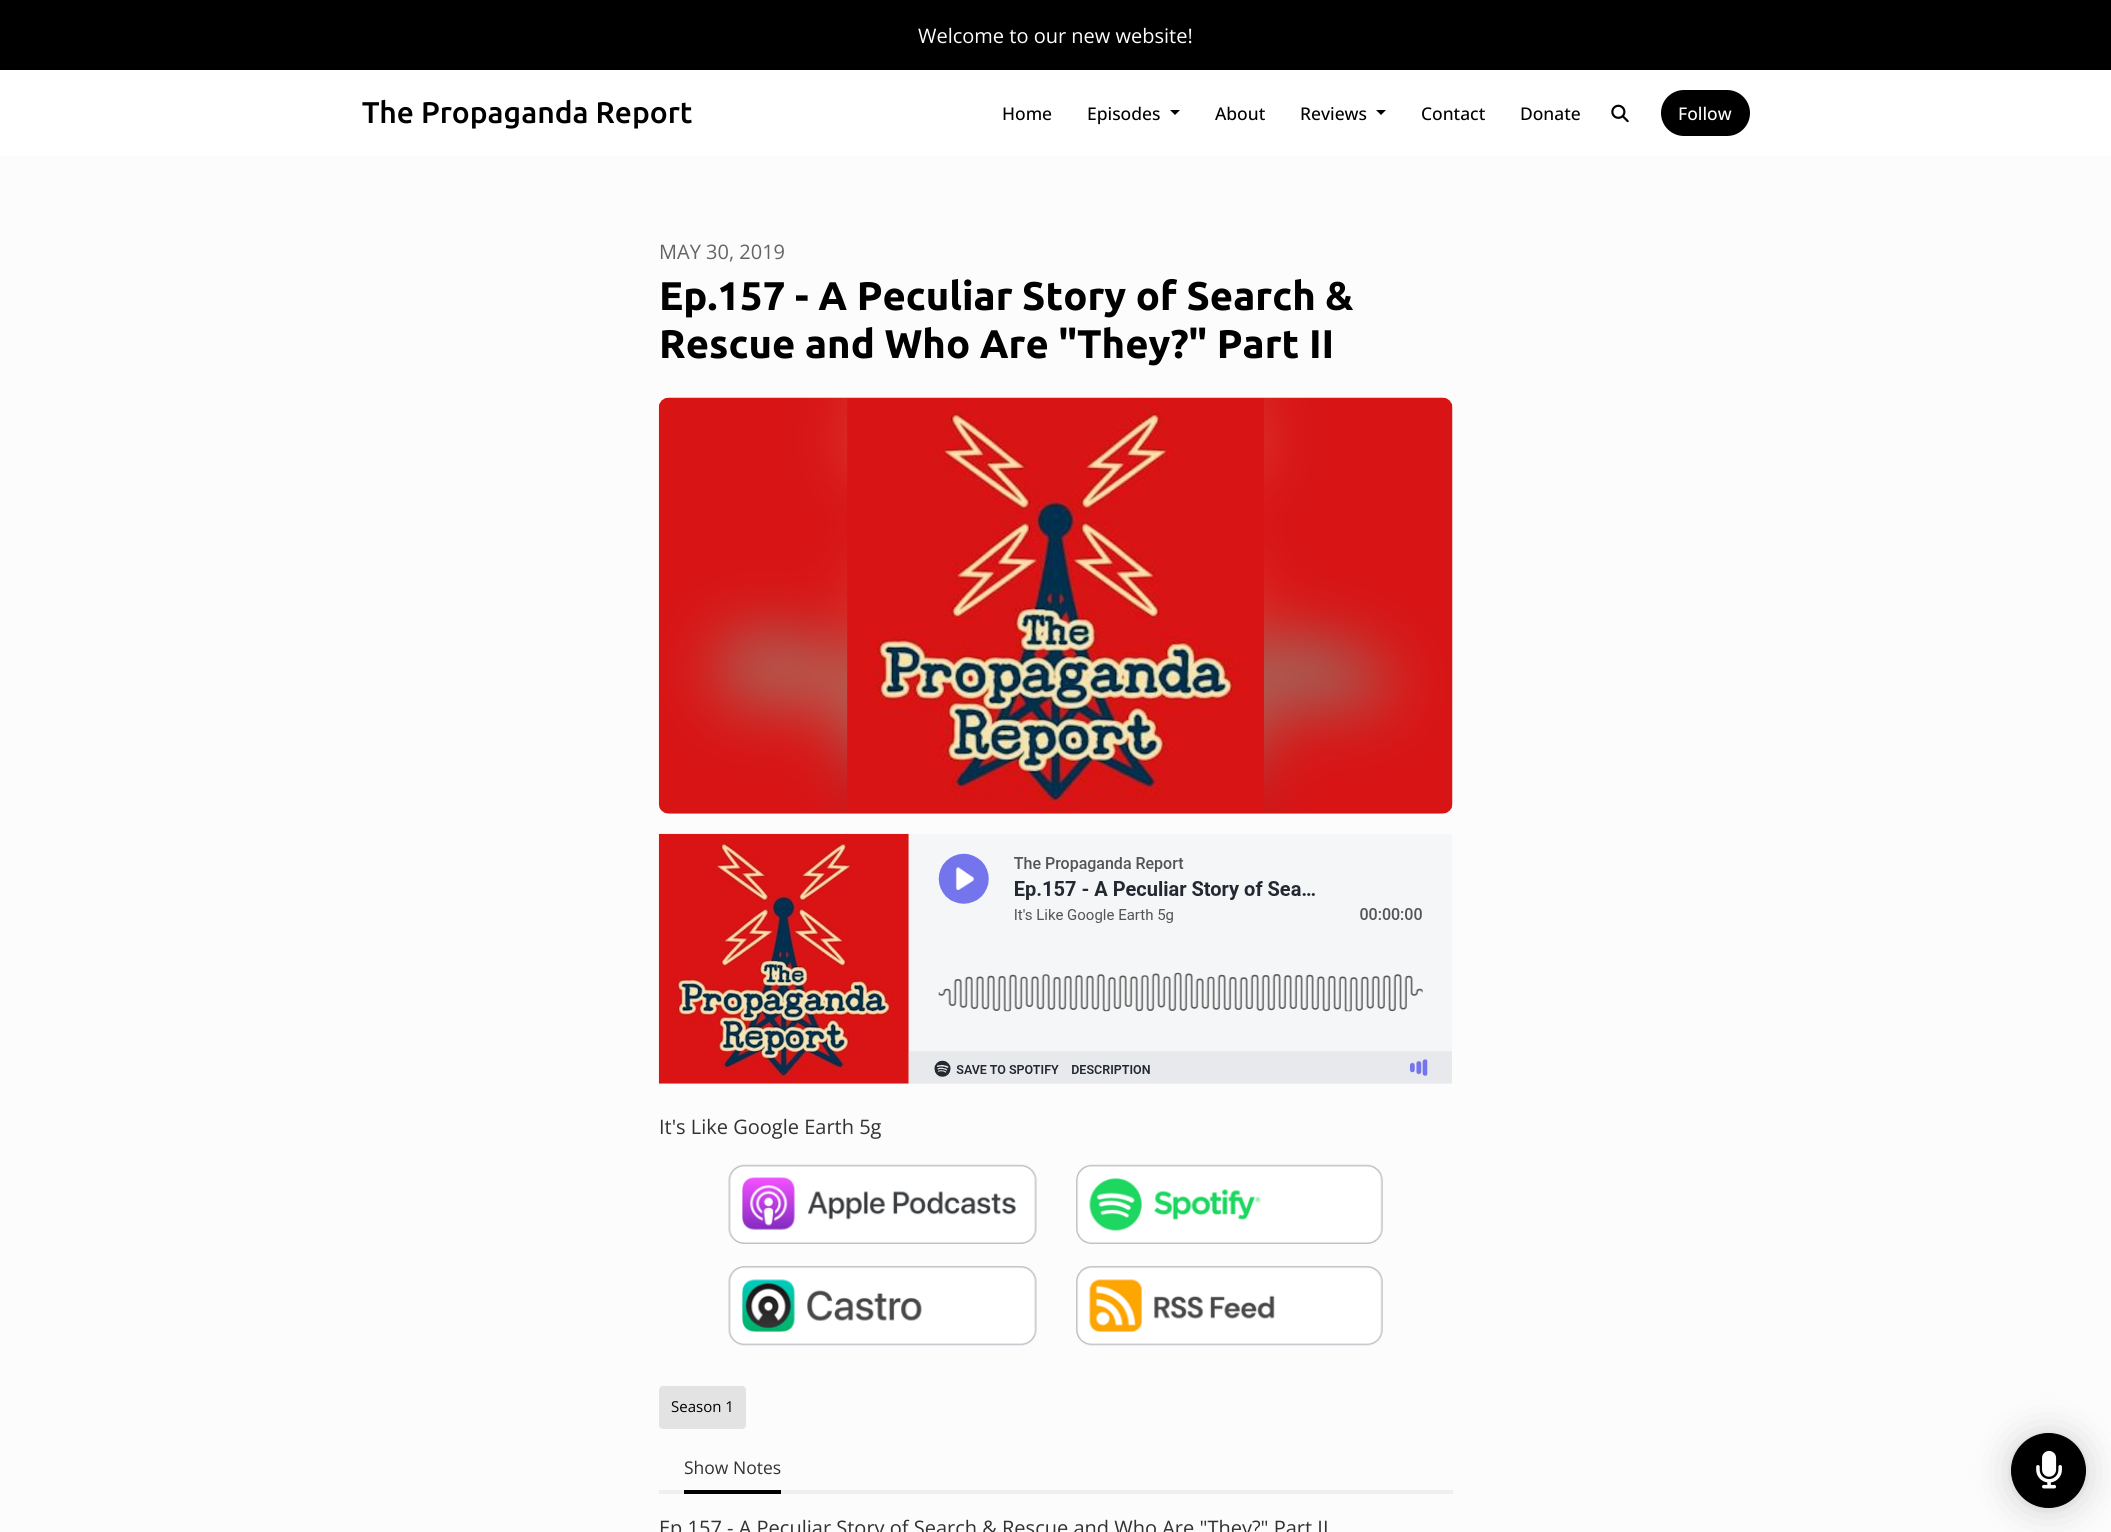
#include <cairo.h>
#include <math.h>
#include <stddef.h>


static void set_color(cairo_t *cr, unsigned color) {
    cairo_set_source_rgb(cr, (color >> 16) / 255.0, (color >> 8 & 255) / 255.0, (color & 255) / 255.0);
}

static void draw_text(cairo_t *cr, double x, double y, const char *s, const char *family, double size, int italic, int bold, unsigned color) {
    cairo_select_font_face(cr, family, italic ? CAIRO_FONT_SLANT_ITALIC : CAIRO_FONT_SLANT_NORMAL,
        bold ? CAIRO_FONT_WEIGHT_BOLD : CAIRO_FONT_WEIGHT_NORMAL);
    cairo_set_font_size(cr, size);
    set_color(cr, color);
    cairo_move_to(cr, x, y);
    cairo_show_text(cr, s);
}

static void fill_rect(cairo_t *cr, double x, double y, double w, double h, unsigned color) {
    set_color(cr, color);
    cairo_rectangle(cr, x, y, w, h);
    cairo_fill(cr);
}

static void rounded_rect(cairo_t *cr, double x, double y, double w, double h, double r) {
    cairo_new_sub_path(cr);
    cairo_arc(cr, x + w - r, y + h - r, r, 0, M_PI / 2);
    cairo_arc(cr, x + r, y + h - r, r, M_PI / 2, M_PI);
    cairo_arc(cr, x + r, y + r, r, M_PI, 1.5 * M_PI);
    cairo_arc(cr, x + w - r, y + r, r, 1.5 * M_PI, 2 * M_PI);
    cairo_close_path(cr);
}

static void draw_shadow(cairo_t *cr, double x, double y, double w, double h, double r, double blur, double alpha) {
    cairo_push_group_with_content(cr, CAIRO_CONTENT_ALPHA);
    cairo_set_operator(cr, CAIRO_OPERATOR_SOURCE);
    for (int i = 15; i >= -15 && fmin(w, h) + blur * i / 3 > 0; i -= 2) {
        double e = blur * i / 6;
        cairo_set_source_rgba(cr, 0, 0, 0, alpha * erfc((i - 1) / 8.5) / 2);
        rounded_rect(cr, x - e, y - e, w + 2 * e, h + 2 * e, fmax(0, fmin(r + e + blur * .6, fmin(w, h) / 2 + e)));
        cairo_fill(cr);
    }
    cairo_pattern_t *soft = cairo_pop_group(cr);
    cairo_mask(cr, soft);
    cairo_pattern_destroy(soft);
}

static void draw_image(cairo_t *cr, const char *path, double x, double y, double w, double h) {
    cairo_surface_t *image = cairo_image_surface_create_from_png(path);
    cairo_save(cr);
    cairo_set_source_surface(cr, image, x, y);
    cairo_rectangle(cr, x, y, w, h);
    cairo_fill(cr);
    cairo_restore(cr);
    cairo_surface_destroy(image);
}

int main(void) {
    cairo_surface_t *surface = cairo_image_surface_create(CAIRO_FORMAT_RGB24, 2111, 1532);
    cairo_t *cr = cairo_create(surface);
    cairo_font_options_t *options = cairo_font_options_create();
    cairo_font_options_set_hint_metrics(options, CAIRO_HINT_METRICS_OFF);
    cairo_font_options_set_hint_style(options, CAIRO_HINT_STYLE_NONE);
    cairo_set_font_options(cr, options);
    cairo_set_miter_limit(cr, 4);
    set_color(cr, 0xFCFCFC);
    cairo_paint(cr);
    fill_rect(cr, 0, 0, 2111, 70, 0x000000);
    draw_text(cr, 918, 43, "Welcome to our new website!", "Open Sans", 20, 0, 0, 0xFFFFFF);
    fill_rect(cr, 0, 70, 2111, 86, 0xFFFFFF);
    draw_text(cr, 362, 123, "The Propaganda Report", "Ubuntu Medium", 30, 0, 0, 0x000000);
    draw_text(cr, 1002, 120, "Home", "Open Sans Medium", 17.5, 0, 0, 0x000000);
    draw_text(cr, 1087, 120, "Episodes", "Open Sans Medium", 17.5, 0, 0, 0x000000);
    cairo_new_path(cr);
    cairo_move_to(cr, 1170, 110);
    cairo_line_to(cr, 1180, 110);
    cairo_line_to(cr, 1175, 115);
    cairo_close_path(cr);
    cairo_fill(cr);
    draw_text(cr, 1215, 120, "About", "Open Sans Medium", 17.5, 0, 0, 0x000000);
    draw_text(cr, 1300, 120, "Reviews", "Open Sans Medium", 17.5, 0, 0, 0x000000);
    cairo_new_path(cr);
    cairo_move_to(cr, 1376, 110);
    cairo_line_to(cr, 1386, 110);
    cairo_line_to(cr, 1381, 115);
    cairo_close_path(cr);
    cairo_fill(cr);
    draw_text(cr, 1421, 120, "Contact", "Open Sans Medium", 17.5, 0, 0, 0x000000);
    draw_text(cr, 1520, 120, "Donate", "Open Sans Medium", 17.5, 0, 0, 0x000000);
    draw_image(cr, "assets/img1.png", 1611, 104, 18, 19);
    rounded_rect(cr, 1661, 90, 89, 46, 23);
    cairo_fill(cr);
    draw_text(cr, 1678, 120, "Follow", "Open Sans Medium", 17.5, 0, 0, 0xFFFFFF);
    draw_text(cr, 659, 259, "MAY 30, 2019", "Open Sans", 20, 0, 0, 0x656565);
    draw_text(cr, 659, 310, "Ep.157 - A Peculiar Story of Search &", "Ubuntu", 40, 0, 1, 0x000000);
    draw_text(cr, 659, 358, "Rescue and Who Are \"They?\" Part II", "Ubuntu", 40, 0, 1, 0x000000);
    draw_image(cr, "assets/img2.png", 658, 397, 795, 417);
    draw_image(cr, "assets/img3.png", 658, 833, 794, 251);
    draw_text(cr, 659, 1134, "It's Like Google Earth 5g", "Open Sans", 20, 0, 0, 0x323232);
    draw_image(cr, "assets/img4.png", 728, 1164, 309, 80);
    draw_image(cr, "assets/img5.png", 1076, 1164, 307, 80);
    draw_image(cr, "assets/img6.png", 728, 1266, 309, 80);
    draw_image(cr, "assets/img7.png", 1076, 1266, 307, 80);
    set_color(cr, 0xE3E3E3);
    rounded_rect(cr, 659, 1386, 87, 43, 4);
    cairo_fill(cr);
    draw_text(cr, 671, 1412, "Season 1", "Open Sans", 15, 0, 0, 0x000000);
    fill_rect(cr, 659, 1490, 794, 4, 0xEFEFEF);
    fill_rect(cr, 684, 1490, 97, 4, 0x000000);
    draw_text(cr, 684, 1474, "Show Notes", "Open Sans", 17.5, 0, 0, 0x323232);
    draw_text(cr, 659, 1535, "Ep.157 - A Peculiar Story of Search & Rescue and Who Are \"They?\" Part II", "Open Sans", 20, 0, 0, 0x323232);
    set_color(cr, 0x000000);
    draw_shadow(cr, 2011, 1435, 75, 75, 37.5, 20, 0.16);
    draw_shadow(cr, 2011, 1434, 75, 75, 37.5, 4, 0.06);
    set_color(cr, 0x000000);
    cairo_arc(cr, 2048.5, 1470.5, 37, 0, 2 * M_PI);
    cairo_fill_preserve(cr);
    cairo_set_line_width(cr, 1);
    cairo_stroke(cr);
    draw_image(cr, "assets/img8.png", 2036, 1450, 26, 39);
    cairo_surface_write_to_png(surface, "output.png");
    cairo_font_options_destroy(options);
    cairo_destroy(cr);
    cairo_surface_destroy(surface);
    return 0;
}
